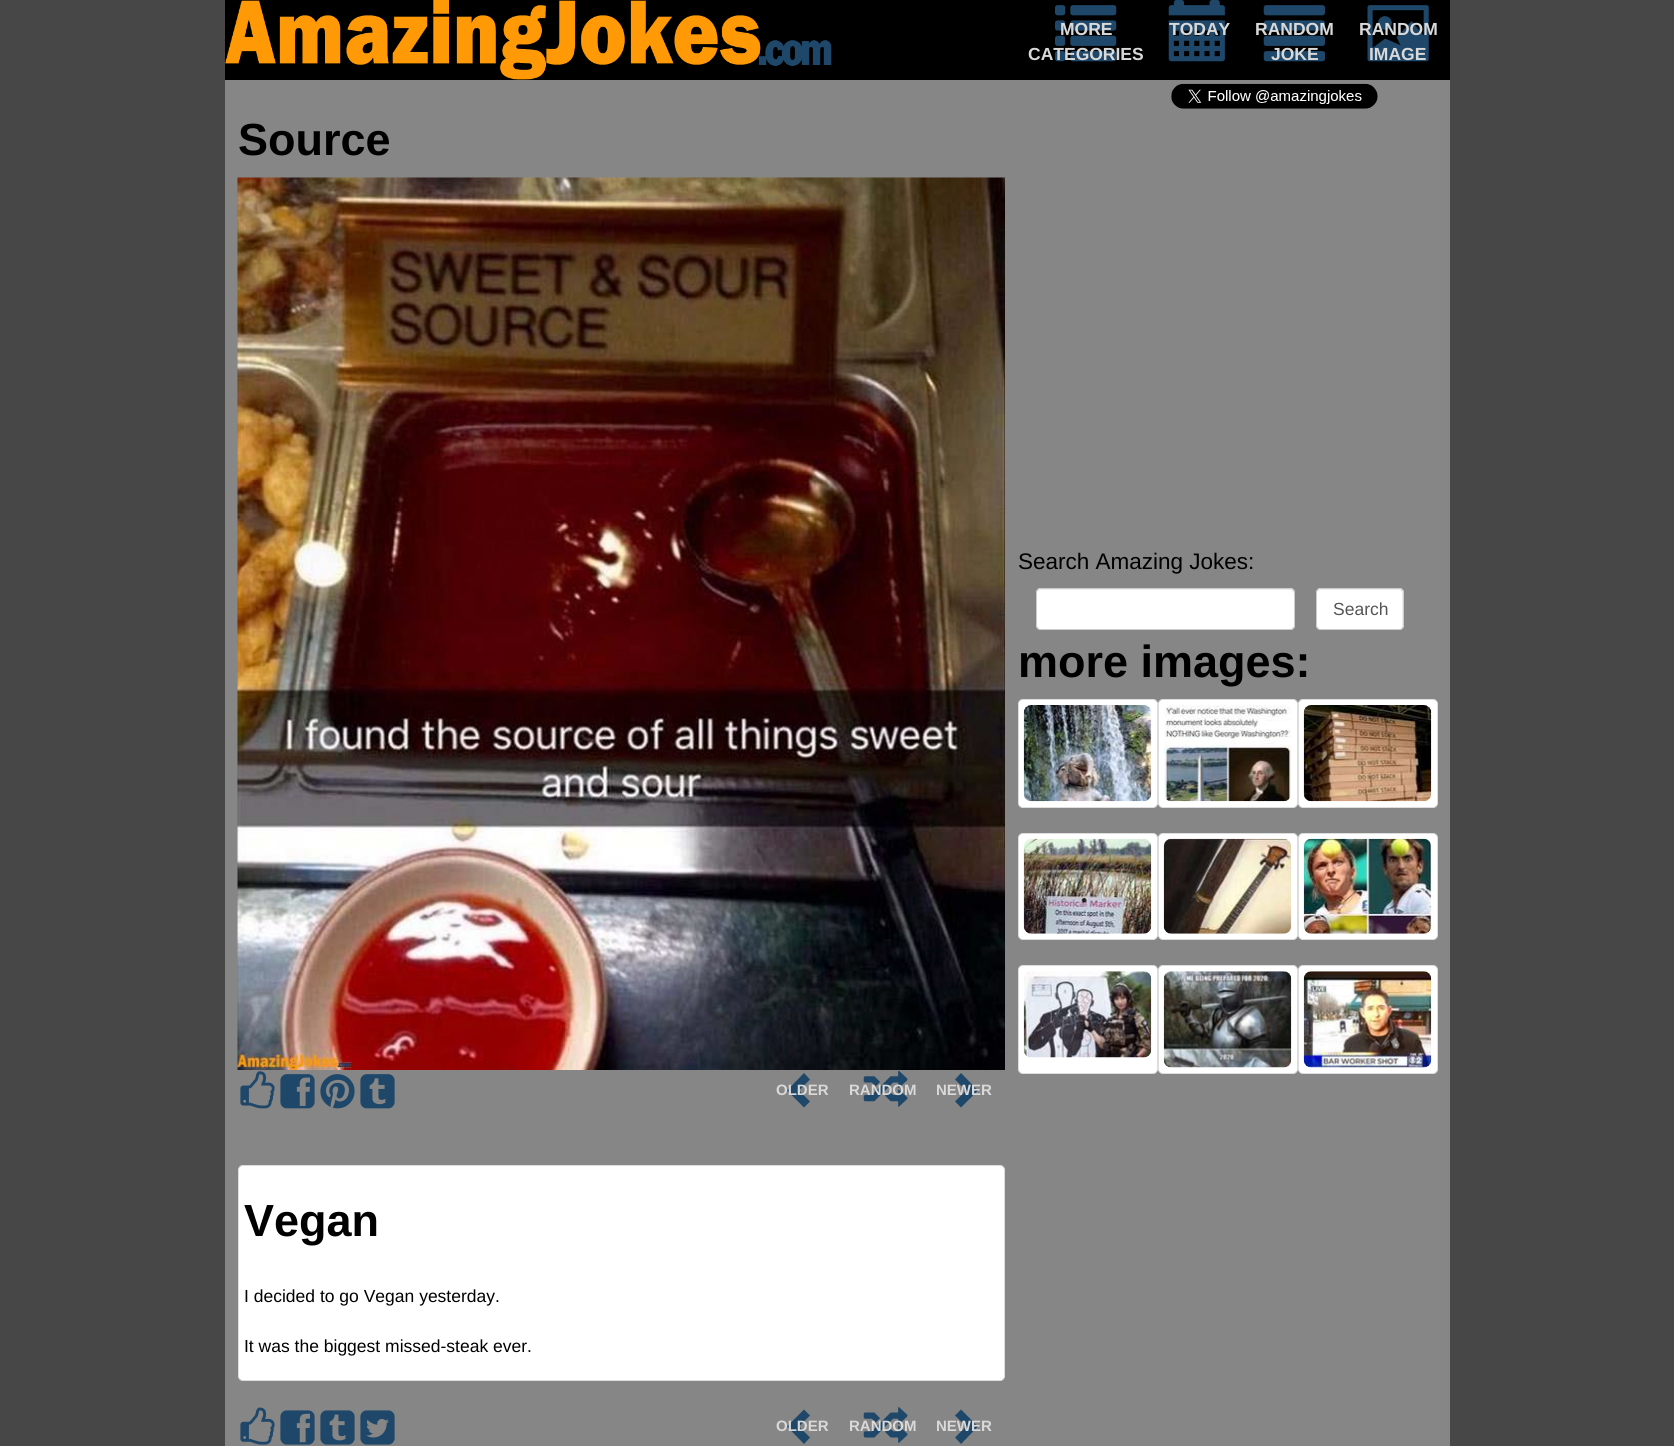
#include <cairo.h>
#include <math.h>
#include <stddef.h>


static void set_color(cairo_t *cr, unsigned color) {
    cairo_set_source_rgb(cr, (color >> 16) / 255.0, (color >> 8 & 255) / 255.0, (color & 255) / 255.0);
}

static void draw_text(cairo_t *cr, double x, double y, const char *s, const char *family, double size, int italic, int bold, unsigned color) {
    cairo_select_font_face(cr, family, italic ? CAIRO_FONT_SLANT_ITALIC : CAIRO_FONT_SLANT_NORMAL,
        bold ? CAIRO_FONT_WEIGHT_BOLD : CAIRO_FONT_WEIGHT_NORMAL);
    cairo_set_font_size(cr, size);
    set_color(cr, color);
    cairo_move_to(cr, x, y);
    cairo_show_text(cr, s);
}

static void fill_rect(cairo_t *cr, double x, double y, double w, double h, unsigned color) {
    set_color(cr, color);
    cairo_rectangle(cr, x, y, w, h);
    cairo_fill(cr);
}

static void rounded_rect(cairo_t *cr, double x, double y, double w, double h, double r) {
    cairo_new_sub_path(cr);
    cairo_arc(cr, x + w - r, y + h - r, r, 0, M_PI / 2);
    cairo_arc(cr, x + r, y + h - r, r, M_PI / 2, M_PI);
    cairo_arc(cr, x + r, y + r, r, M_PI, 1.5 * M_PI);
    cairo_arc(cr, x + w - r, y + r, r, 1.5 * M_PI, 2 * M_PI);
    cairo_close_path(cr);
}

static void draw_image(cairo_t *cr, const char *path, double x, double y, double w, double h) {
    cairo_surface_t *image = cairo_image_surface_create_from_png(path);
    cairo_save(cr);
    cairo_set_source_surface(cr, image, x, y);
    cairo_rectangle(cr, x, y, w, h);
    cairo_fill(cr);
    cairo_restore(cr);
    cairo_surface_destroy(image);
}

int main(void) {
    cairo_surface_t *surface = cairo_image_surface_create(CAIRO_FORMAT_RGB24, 1674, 1446);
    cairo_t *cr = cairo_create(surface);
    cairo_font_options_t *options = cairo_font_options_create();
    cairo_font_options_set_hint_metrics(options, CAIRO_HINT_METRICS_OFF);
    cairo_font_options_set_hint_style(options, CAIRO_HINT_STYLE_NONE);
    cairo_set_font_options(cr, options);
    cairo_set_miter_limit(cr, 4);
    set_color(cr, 0x474747);
    cairo_paint(cr);
    fill_rect(cr, 225, 80, 1225, 1366, 0x868686);
    fill_rect(cr, 225, 0, 1225, 80, 0x000000);
    draw_image(cr, "assets/img1.png", 225, 0, 607, 80);
    draw_image(cr, "assets/img2.png", 1055, 5, 62, 57);
    draw_text(cr, 1060, 35, "MORE", "Liberation Sans", 17.5, 0, 1, 0xD9D9D9);
    draw_text(cr, 1028, 60, "CATEGORIES", "Liberation Sans", 17.5, 0, 1, 0xD9D9D9);
    draw_image(cr, "assets/img3.png", 1168, 0, 57, 62);
    draw_text(cr, 1169, 35, "TODAY", "Liberation Sans", 17.5, 0, 1, 0xD9D9D9);
    draw_image(cr, "assets/img4.png", 1263, 5, 62, 57);
    draw_text(cr, 1255, 35, "RANDOM", "Liberation Sans", 17.5, 0, 1, 0xD9D9D9);
    draw_text(cr, 1271, 60, "JOKE", "Liberation Sans", 17.5, 0, 1, 0xD9D9D9);
    draw_image(cr, "assets/img5.png", 1367, 5, 62, 57);
    draw_text(cr, 1359, 35, "RANDOM", "Liberation Sans", 17.5, 0, 1, 0xD9D9D9);
    draw_text(cr, 1369, 60, "IMAGE", "Liberation Sans", 17.5, 0, 1, 0xD9D9D9);
    draw_image(cr, "assets/img6.png", 1171, 83, 207, 26);
    draw_text(cr, 238, 155, "Source", "Liberation Sans", 45, 0, 1, 0x000000);
    draw_image(cr, "assets/img7.png", 237, 177, 768, 893);
    draw_image(cr, "assets/img8.png", 240, 1071, 35, 38);
    draw_image(cr, "assets/img9.png", 280, 1074, 35, 35);
    draw_image(cr, "assets/img10.png", 320, 1074, 35, 35);
    draw_image(cr, "assets/img11.png", 360, 1074, 35, 35);
    set_color(cr, 0x1E4769);
    cairo_new_path(cr);
    cairo_move_to(cr, 810, 1079.5);
    cairo_line_to(cr, 799, 1090.5);
    cairo_line_to(cr, 810, 1101.5);
    cairo_line_to(cr, 804, 1107.5);
    cairo_line_to(cr, 787, 1090.5);
    cairo_line_to(cr, 804, 1073);
    cairo_close_path(cr);
    cairo_fill(cr);
    draw_text(cr, 776, 1095, "OLDER", "Liberation Sans", 15, 0, 1, 0xD9D9D9);
    draw_image(cr, "assets/img12.png", 863, 1070, 45, 37);
    draw_text(cr, 849, 1095, "RANDOM", "Liberation Sans", 15, 0, 1, 0xD9D9D9);
    set_color(cr, 0x1E4769);
    cairo_new_path(cr);
    cairo_move_to(cr, 978, 1090.5);
    cairo_line_to(cr, 961, 1107.5);
    cairo_line_to(cr, 955, 1101.5);
    cairo_line_to(cr, 966, 1090.5);
    cairo_line_to(cr, 955, 1079.5);
    cairo_line_to(cr, 961, 1073);
    cairo_close_path(cr);
    cairo_fill(cr);
    draw_text(cr, 936, 1095, "NEWER", "Liberation Sans", 15, 0, 1, 0xD9D9D9);
    draw_text(cr, 1018, 569, "Search Amazing Jokes:", "Liberation Sans", 22.5, 0, 0, 0x000000);
    set_color(cr, 0xFFFFFF);
    rounded_rect(cr, 1036, 588, 259, 42, 5);
    cairo_fill(cr);
    set_color(cr, 0xECECEC);
    cairo_new_path(cr);
    cairo_move_to(cr, 1041, 590);
    cairo_line_to(cr, 1291, 590);
    cairo_line_to(cr, 1293, 592);
    cairo_line_to(cr, 1294, 594);
    cairo_line_to(cr, 1294, 593);
    cairo_curve_to(cr, 1294, 591, 1292, 589, 1290, 589);
    cairo_line_to(cr, 1042, 589);
    cairo_curve_to(cr, 1040, 589, 1038, 591, 1038, 593);
    cairo_line_to(cr, 1038, 594);
    cairo_curve_to(cr, 1038, 592, 1039, 590, 1041, 590);
    cairo_close_path(cr);
    cairo_fill(cr);
    rounded_rect(cr, 1036.5, 588.5, 258, 41, 4.5);
    set_color(cr, 0xCCCCCC);
    cairo_set_line_width(cr, 1);
    cairo_stroke(cr);
    set_color(cr, 0xFFFFFF);
    rounded_rect(cr, 1316, 588, 88, 42, 5);
    cairo_fill(cr);
    set_color(cr, 0xECECEC);
    cairo_new_path(cr);
    cairo_move_to(cr, 1321, 590);
    cairo_line_to(cr, 1399, 590);
    cairo_curve_to(cr, 1403, 590, 1402, 597, 1402, 599);
    cairo_line_to(cr, 1402, 628);
    cairo_curve_to(cr, 1402, 627, 1403, 626, 1403, 625);
    cairo_line_to(cr, 1403, 593);
    cairo_curve_to(cr, 1403, 591, 1401, 589, 1399, 589);
    cairo_line_to(cr, 1322, 589);
    cairo_curve_to(cr, 1320, 589, 1318, 591, 1318, 593);
    cairo_line_to(cr, 1318, 594);
    cairo_curve_to(cr, 1318, 592, 1319, 590, 1321, 590);
    cairo_close_path(cr);
    cairo_fill(cr);
    rounded_rect(cr, 1316.5, 588.5, 87, 41, 4.5);
    set_color(cr, 0xCCCCCC);
    cairo_stroke(cr);
    draw_text(cr, 1333, 615, "Search", "Liberation Sans", 17.5, 0, 0, 0x555555);
    draw_text(cr, 1018, 677, "more images:", "Liberation Sans", 45, 0, 1, 0x000000);
    set_color(cr, 0xFFFFFF);
    rounded_rect(cr, 1018.5, 699.5, 139, 108, 4.5);
    cairo_fill_preserve(cr);
    set_color(cr, 0xDDDDDD);
    cairo_stroke(cr);
    draw_image(cr, "assets/img13.png", 1023, 705, 129, 97);
    set_color(cr, 0xFFFFFF);
    rounded_rect(cr, 1158.5, 699.5, 139, 108, 4.5);
    cairo_fill_preserve(cr);
    set_color(cr, 0xDDDDDD);
    cairo_stroke(cr);
    draw_image(cr, "assets/img14.png", 1164, 705, 127, 97);
    set_color(cr, 0xFFFFFF);
    rounded_rect(cr, 1298.5, 699.5, 139, 108, 4.5);
    cairo_fill_preserve(cr);
    set_color(cr, 0xDDDDDD);
    cairo_stroke(cr);
    draw_image(cr, "assets/img15.png", 1303, 705, 129, 97);
    set_color(cr, 0xFFFFFF);
    rounded_rect(cr, 1018.5, 833.5, 139, 106, 4.5);
    cairo_fill_preserve(cr);
    set_color(cr, 0xDDDDDD);
    cairo_stroke(cr);
    draw_image(cr, "assets/img16.png", 1023, 838, 129, 96);
    set_color(cr, 0xFFFFFF);
    rounded_rect(cr, 1158.5, 833.5, 139, 106, 4.5);
    cairo_fill_preserve(cr);
    set_color(cr, 0xDDDDDD);
    cairo_stroke(cr);
    draw_image(cr, "assets/img17.png", 1163, 838, 129, 96);
    set_color(cr, 0xFFFFFF);
    rounded_rect(cr, 1298.5, 833.5, 139, 106, 4.5);
    cairo_fill_preserve(cr);
    set_color(cr, 0xDDDDDD);
    cairo_stroke(cr);
    draw_image(cr, "assets/img18.png", 1303, 838, 129, 96);
    set_color(cr, 0xFFFFFF);
    rounded_rect(cr, 1018.5, 965.5, 139, 108, 4.5);
    cairo_fill_preserve(cr);
    set_color(cr, 0xDDDDDD);
    cairo_stroke(cr);
    draw_image(cr, "assets/img19.png", 1023, 971, 129, 87);
    set_color(cr, 0xFFFFFF);
    rounded_rect(cr, 1158.5, 965.5, 139, 108, 4.5);
    cairo_fill_preserve(cr);
    set_color(cr, 0xDDDDDD);
    cairo_stroke(cr);
    draw_image(cr, "assets/img20.png", 1163, 971, 129, 97);
    set_color(cr, 0xFFFFFF);
    rounded_rect(cr, 1298.5, 965.5, 139, 108, 4.5);
    cairo_fill_preserve(cr);
    set_color(cr, 0xDDDDDD);
    cairo_stroke(cr);
    draw_image(cr, "assets/img21.png", 1303, 971, 129, 97);
    set_color(cr, 0xFFFFFF);
    rounded_rect(cr, 238.5, 1165.5, 766, 215, 4.5);
    cairo_fill_preserve(cr);
    set_color(cr, 0xDDDDDD);
    cairo_stroke(cr);
    draw_text(cr, 244, 1236, "Vegan", "Liberation Sans", 45, 0, 1, 0x000000);
    draw_text(cr, 244, 1302, "I decided to go Vegan yesterday.", "Liberation Sans", 17.5, 0, 0, 0x000000);
    draw_text(cr, 244, 1352, "It was the biggest missed-steak ever.", "Liberation Sans", 17.5, 0, 0, 0x000000);
    draw_image(cr, "assets/img22.png", 240, 1407, 35, 38);
    draw_image(cr, "assets/img23.png", 280, 1410, 35, 35);
    draw_image(cr, "assets/img24.png", 320, 1410, 35, 35);
    draw_image(cr, "assets/img25.png", 360, 1410, 35, 35);
    set_color(cr, 0x1E4769);
    cairo_new_path(cr);
    cairo_move_to(cr, 810, 1415.5);
    cairo_line_to(cr, 799, 1426.5);
    cairo_line_to(cr, 810, 1437.5);
    cairo_line_to(cr, 804, 1444);
    cairo_line_to(cr, 787, 1426.5);
    cairo_line_to(cr, 804, 1409.5);
    cairo_close_path(cr);
    cairo_fill(cr);
    draw_text(cr, 776, 1431, "OLDER", "Liberation Sans", 15, 0, 1, 0xD9D9D9);
    draw_image(cr, "assets/img26.png", 863, 1407, 45, 36);
    draw_text(cr, 849, 1431, "RANDOM", "Liberation Sans", 15, 0, 1, 0xD9D9D9);
    set_color(cr, 0x1E4769);
    cairo_new_path(cr);
    cairo_move_to(cr, 978, 1426.5);
    cairo_line_to(cr, 961, 1444);
    cairo_line_to(cr, 955, 1437.5);
    cairo_line_to(cr, 966, 1426.5);
    cairo_line_to(cr, 955, 1415.5);
    cairo_line_to(cr, 961, 1409.5);
    cairo_close_path(cr);
    cairo_fill(cr);
    draw_text(cr, 936, 1431, "NEWER", "Liberation Sans", 15, 0, 1, 0xD9D9D9);
    cairo_surface_write_to_png(surface, "output.png");
    cairo_font_options_destroy(options);
    cairo_destroy(cr);
    cairo_surface_destroy(surface);
    return 0;
}
